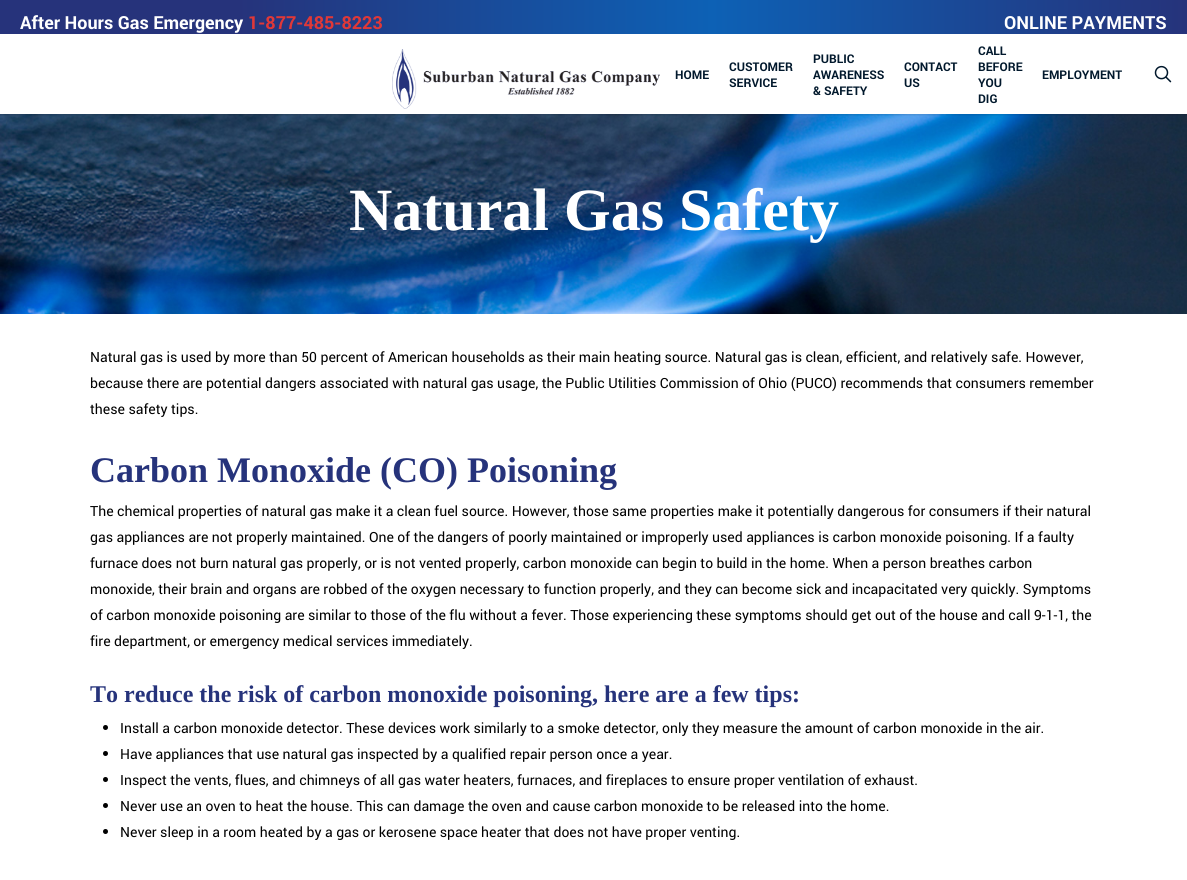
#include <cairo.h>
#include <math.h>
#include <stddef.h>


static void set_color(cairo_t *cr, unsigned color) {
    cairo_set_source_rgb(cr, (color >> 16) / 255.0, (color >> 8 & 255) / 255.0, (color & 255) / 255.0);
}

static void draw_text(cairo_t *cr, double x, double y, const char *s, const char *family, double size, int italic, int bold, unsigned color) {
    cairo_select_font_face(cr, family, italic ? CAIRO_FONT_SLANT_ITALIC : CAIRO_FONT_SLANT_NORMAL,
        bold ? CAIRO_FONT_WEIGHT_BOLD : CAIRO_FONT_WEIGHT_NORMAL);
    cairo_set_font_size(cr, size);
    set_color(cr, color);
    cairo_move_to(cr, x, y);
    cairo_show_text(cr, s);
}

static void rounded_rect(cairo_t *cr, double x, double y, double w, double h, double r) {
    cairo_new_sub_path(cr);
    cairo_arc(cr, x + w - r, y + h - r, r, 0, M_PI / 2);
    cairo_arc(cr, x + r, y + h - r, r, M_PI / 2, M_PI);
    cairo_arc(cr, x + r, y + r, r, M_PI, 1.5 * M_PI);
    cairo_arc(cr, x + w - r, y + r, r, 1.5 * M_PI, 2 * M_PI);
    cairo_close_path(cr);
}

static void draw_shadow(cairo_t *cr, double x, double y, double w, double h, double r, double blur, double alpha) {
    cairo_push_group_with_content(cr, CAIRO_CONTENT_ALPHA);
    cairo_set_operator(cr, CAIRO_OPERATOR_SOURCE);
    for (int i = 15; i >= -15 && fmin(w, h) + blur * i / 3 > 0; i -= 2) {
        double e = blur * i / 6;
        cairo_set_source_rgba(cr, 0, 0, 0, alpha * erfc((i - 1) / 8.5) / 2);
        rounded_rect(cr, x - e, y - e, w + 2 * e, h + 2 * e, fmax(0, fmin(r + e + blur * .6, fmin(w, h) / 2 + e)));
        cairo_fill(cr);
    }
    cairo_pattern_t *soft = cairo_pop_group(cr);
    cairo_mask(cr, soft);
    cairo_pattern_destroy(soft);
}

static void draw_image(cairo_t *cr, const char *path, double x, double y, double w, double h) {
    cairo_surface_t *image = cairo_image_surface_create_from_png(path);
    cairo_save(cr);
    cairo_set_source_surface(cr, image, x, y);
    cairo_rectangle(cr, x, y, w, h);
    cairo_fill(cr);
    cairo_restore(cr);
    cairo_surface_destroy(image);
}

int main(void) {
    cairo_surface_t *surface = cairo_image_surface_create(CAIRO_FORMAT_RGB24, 1187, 880);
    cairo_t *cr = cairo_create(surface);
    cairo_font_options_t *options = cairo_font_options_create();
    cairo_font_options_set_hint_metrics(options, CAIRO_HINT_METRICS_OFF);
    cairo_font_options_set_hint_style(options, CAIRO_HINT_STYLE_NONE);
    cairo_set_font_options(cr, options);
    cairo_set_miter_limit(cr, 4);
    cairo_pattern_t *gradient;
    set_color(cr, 0xFFFFFF);
    cairo_paint(cr);
    draw_image(cr, "assets/img3.png", 0, 114, 1187, 200);
    cairo_save(cr);
    cairo_rectangle(cr, 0, 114, 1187, 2);
    cairo_clip(cr);
    set_color(cr, 0x000000);
    draw_shadow(cr, 0, 0, 1187, 114, 0, 1.5, 0.22);
    cairo_restore(cr);
    gradient = cairo_pattern_create_linear(0, 17, 1187, 17);
    cairo_pattern_add_color_stop_rgba(gradient, 0.2, 0.149, 0.2, 0.482, 1);
    cairo_pattern_add_color_stop_rgba(gradient, 0.6, 0.051, 0.38, 0.71, 1);
    cairo_pattern_add_color_stop_rgba(gradient, 1, 0.149, 0.2, 0.482, 1);
    cairo_set_source(cr, gradient);
    cairo_pattern_destroy(gradient);
    cairo_rectangle(cr, 0, 0, 1187, 34);
    cairo_fill(cr);
    draw_text(cr, 20, 29, "After Hours Gas Emergency", "Roboto", 18, 0, 1, 0xFFFFFF);
    draw_text(cr, 248, 29, "1-877-485-8223", "Roboto", 18, 0, 1, 0xE03838);
    draw_text(cr, 1004, 29, "ONLINE PAYMENTS", "Roboto", 18, 0, 1, 0xFFFFFF);
    draw_image(cr, "assets/img1.png", 392, 49, 268, 60);
    draw_text(cr, 675, 79, "HOME", "Roboto", 12, 0, 1, 0x01182C);
    draw_text(cr, 729, 71, "CUSTOMER", "Roboto", 12, 0, 1, 0x01182C);
    draw_text(cr, 729, 87, "SERVICE", "Roboto", 12, 0, 1, 0x01182C);
    draw_text(cr, 813, 63, "PUBLIC", "Roboto", 12, 0, 1, 0x01182C);
    draw_text(cr, 813, 79, "AWARENESS", "Roboto", 12, 0, 1, 0x01182C);
    draw_text(cr, 813, 95, "& SAFETY", "Roboto", 12, 0, 1, 0x01182C);
    draw_text(cr, 904, 71, "CONTACT", "Roboto", 12, 0, 1, 0x01182C);
    draw_text(cr, 904, 87, "US", "Roboto", 12, 0, 1, 0x01182C);
    draw_text(cr, 978, 55, "CALL", "Roboto", 12, 0, 1, 0x01182C);
    draw_text(cr, 978, 71, "BEFORE", "Roboto", 12, 0, 1, 0x01182C);
    draw_text(cr, 978, 87, "YOU", "Roboto", 12, 0, 1, 0x01182C);
    draw_text(cr, 978, 103, "DIG", "Roboto", 12, 0, 1, 0x01182C);
    draw_text(cr, 1042, 79, "EMPLOYMENT", "Roboto", 12, 0, 1, 0x01182C);
    draw_image(cr, "assets/img2.png", 1154, 65, 18, 18);
    draw_text(cr, 349, 230, "Natural Gas Safety", "Liberation Serif", 60, 0, 1, 0xFFFFFF);
    draw_text(cr, 90, 362, "Natural gas is used by more than 50 percent of American households as their main heating source. Natural gas is clean, efficient, and relatively safe. However,", "Roboto", 14, 0, 0, 0x000000);
    draw_text(cr, 90, 388, "because there are potential dangers associated with natural gas usage, the Public Utilities Commission of Ohio (PUCO) recommends that consumers remember", "Roboto", 14, 0, 0, 0x000000);
    draw_text(cr, 90, 414, "these safety tips.", "Roboto", 14, 0, 0, 0x000000);
    draw_text(cr, 90, 482, "Carbon Monoxide (CO) Poisoning", "Liberation Serif", 36, 0, 1, 0x26337B);
    draw_text(cr, 90, 516, "The chemical properties of natural gas make it a clean fuel source. However, those same properties make it potentially dangerous for consumers if their natural", "Roboto", 14, 0, 0, 0x000000);
    draw_text(cr, 90, 542, "gas appliances are not properly maintained. One of the dangers of poorly maintained or improperly used appliances is carbon monoxide poisoning. If a faulty", "Roboto", 14, 0, 0, 0x000000);
    draw_text(cr, 90, 568, "furnace does not burn natural gas properly, or is not vented properly, carbon monoxide can begin to build in the home. When a person breathes carbon", "Roboto", 14, 0, 0, 0x000000);
    draw_text(cr, 90, 594, "monoxide, their brain and organs are robbed of the oxygen necessary to function properly, and they can become sick and incapacitated very quickly. Symptoms", "Roboto", 14, 0, 0, 0x000000);
    draw_text(cr, 90, 620, "of carbon monoxide poisoning are similar to those of the flu without a fever. Those experiencing these symptoms should get out of the house and call 9-1-1, the", "Roboto", 14, 0, 0, 0x000000);
    draw_text(cr, 90, 646, "fire department, or emergency medical services immediately.", "Roboto", 14, 0, 0, 0x000000);
    draw_text(cr, 90, 702, "To reduce the risk of carbon monoxide poisoning, here are a few tips:", "Liberation Serif", 24, 0, 1, 0x26337B);
    set_color(cr, 0x000000);
    cairo_new_path(cr);
    cairo_arc(cr, 105.5, 727.5, 2.5, 0, 2 * M_PI);
    cairo_fill(cr);
    draw_text(cr, 120, 733, "Install a carbon monoxide detector. These devices work similarly to a smoke detector, only they measure the amount of carbon monoxide in the air.", "Roboto", 14, 0, 0, 0x000000);
    cairo_new_path(cr);
    cairo_arc(cr, 105.5, 753.5, 2.5, 0, 2 * M_PI);
    cairo_fill(cr);
    draw_text(cr, 120, 759, "Have appliances that use natural gas inspected by a qualified repair person once a year.", "Roboto", 14, 0, 0, 0x000000);
    cairo_new_path(cr);
    cairo_arc(cr, 105.5, 779.5, 2.5, 0, 2 * M_PI);
    cairo_fill(cr);
    draw_text(cr, 120, 785, "Inspect the vents, flues, and chimneys of all gas water heaters, furnaces, and fireplaces to ensure proper ventilation of exhaust.", "Roboto", 14, 0, 0, 0x000000);
    cairo_new_path(cr);
    cairo_arc(cr, 105.5, 805.5, 2.5, 0, 2 * M_PI);
    cairo_fill(cr);
    draw_text(cr, 120, 811, "Never use an oven to heat the house. This can damage the oven and cause carbon monoxide to be released into the home.", "Roboto", 14, 0, 0, 0x000000);
    cairo_new_path(cr);
    cairo_arc(cr, 105.5, 831.5, 2.5, 0, 2 * M_PI);
    cairo_fill(cr);
    draw_text(cr, 120, 837, "Never sleep in a room heated by a gas or kerosene space heater that does not have proper venting.", "Roboto", 14, 0, 0, 0x000000);
    cairo_surface_write_to_png(surface, "output.png");
    cairo_font_options_destroy(options);
    cairo_destroy(cr);
    cairo_surface_destroy(surface);
    return 0;
}
